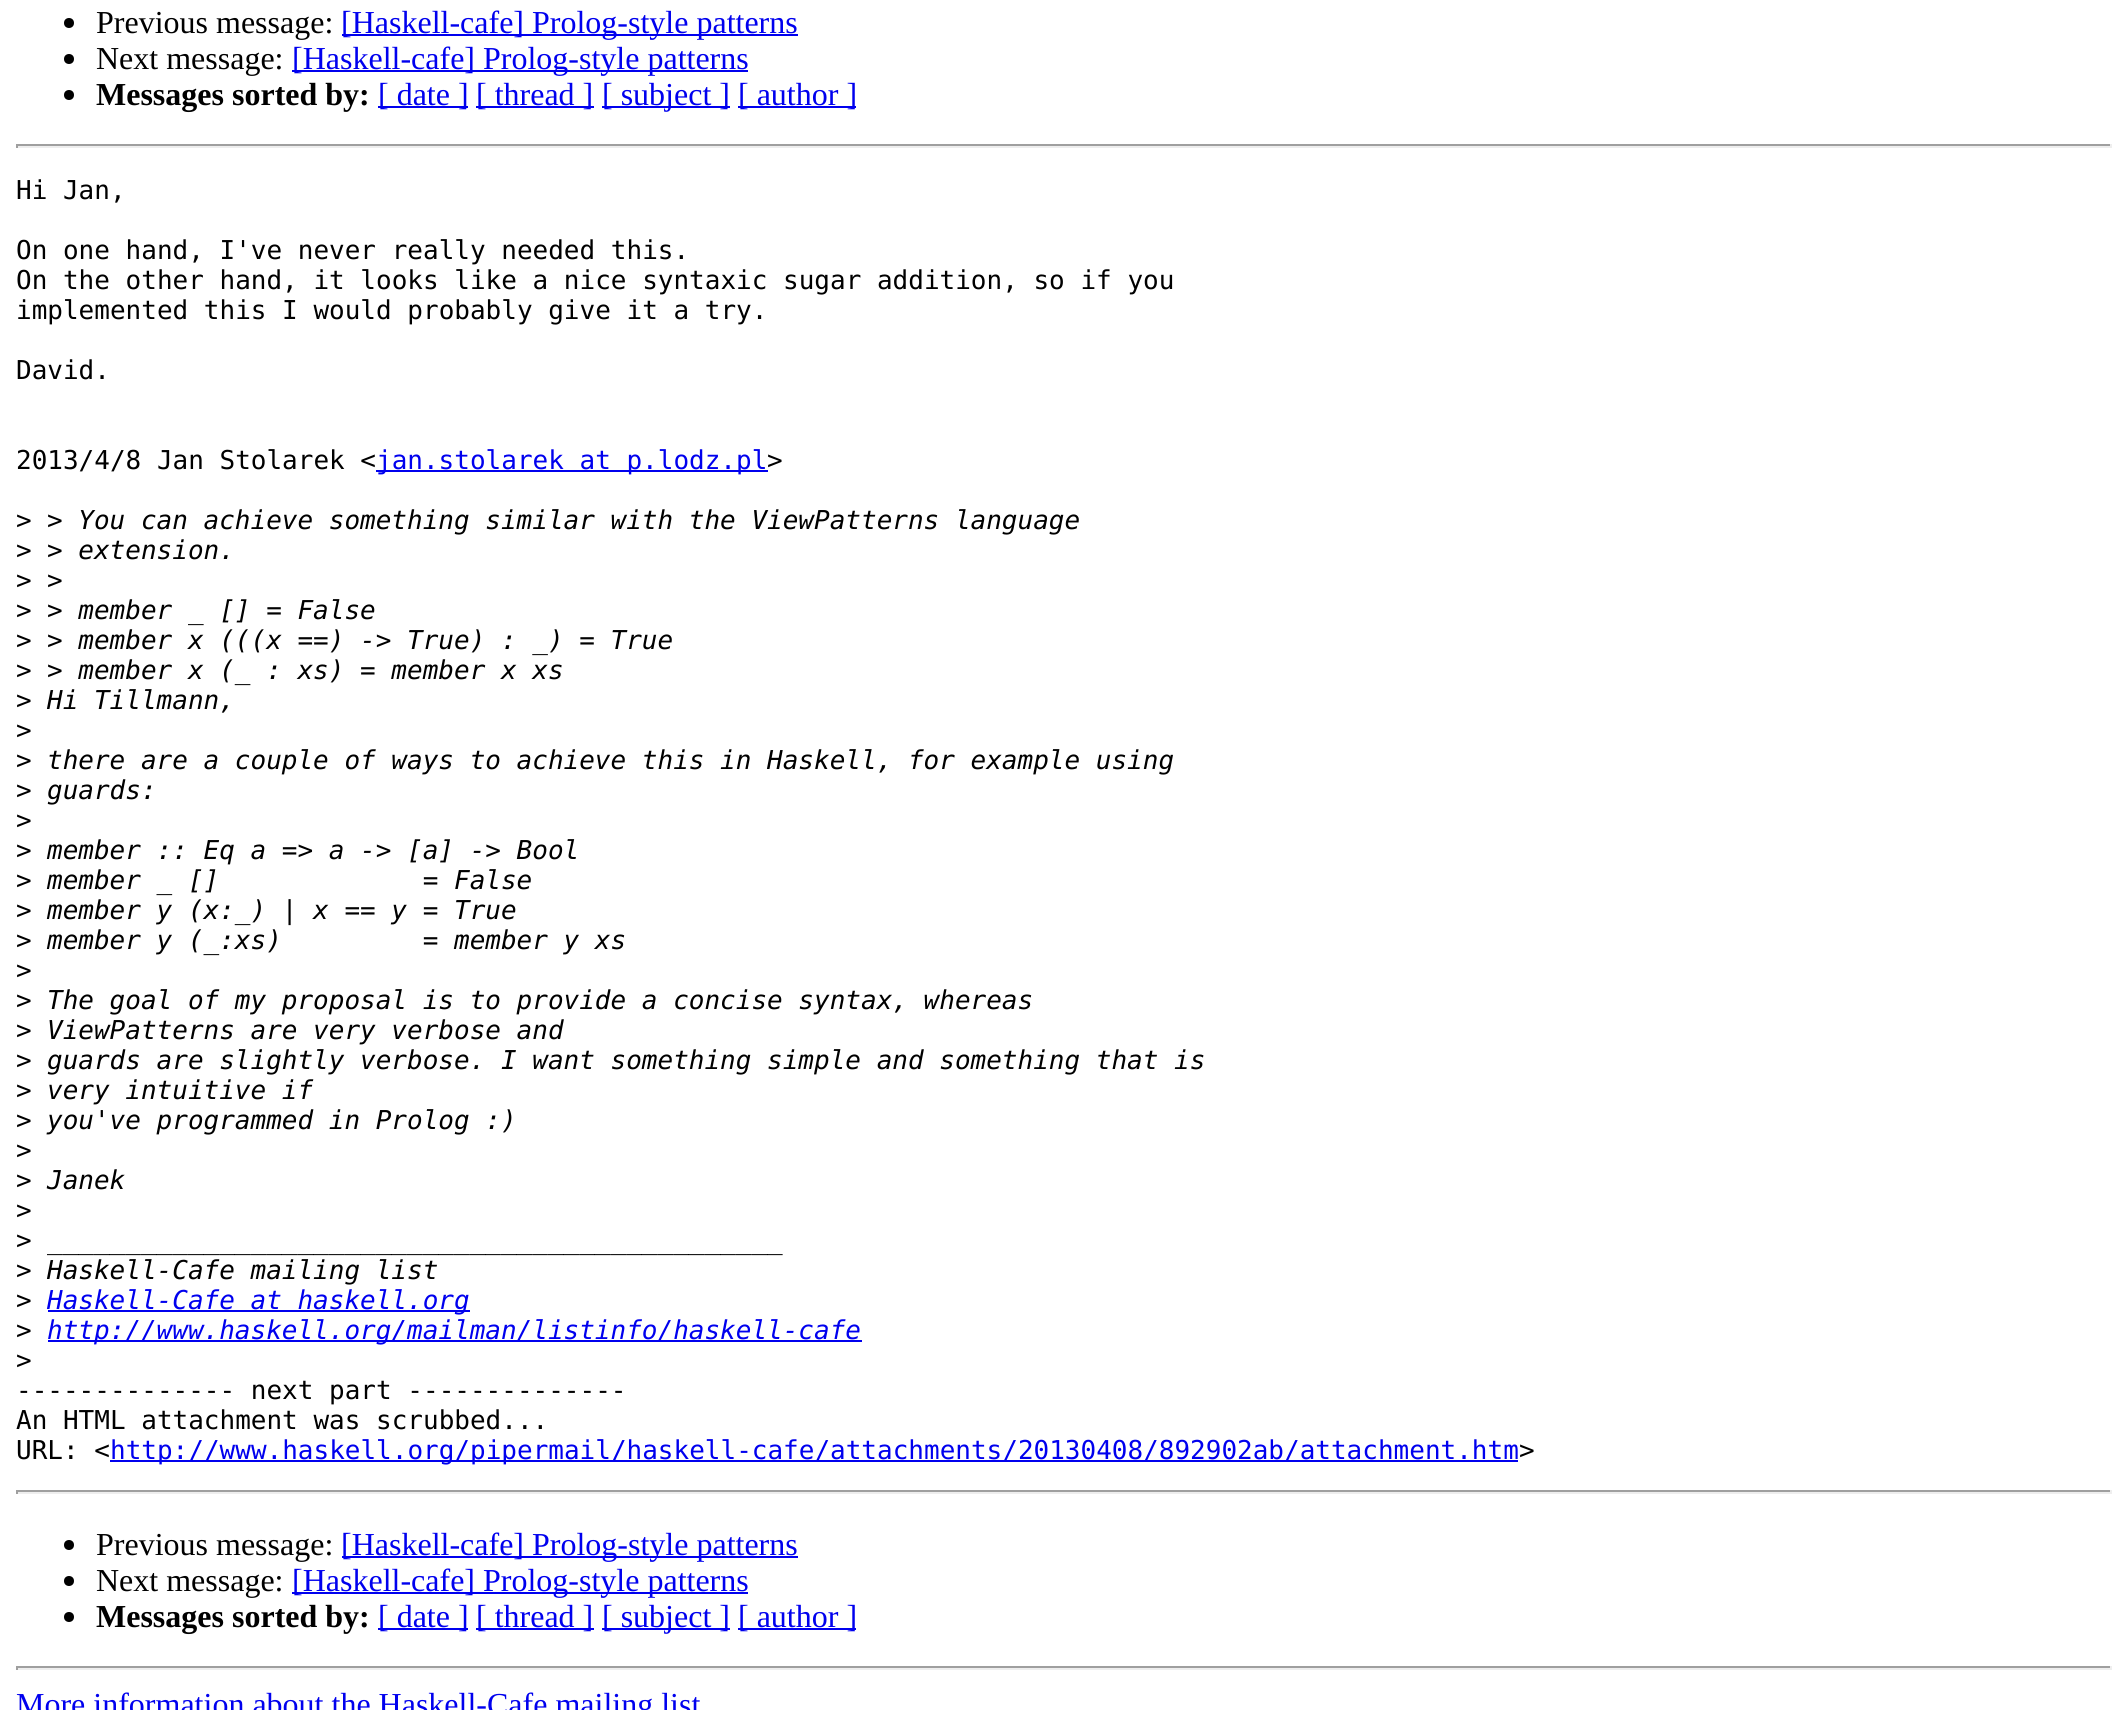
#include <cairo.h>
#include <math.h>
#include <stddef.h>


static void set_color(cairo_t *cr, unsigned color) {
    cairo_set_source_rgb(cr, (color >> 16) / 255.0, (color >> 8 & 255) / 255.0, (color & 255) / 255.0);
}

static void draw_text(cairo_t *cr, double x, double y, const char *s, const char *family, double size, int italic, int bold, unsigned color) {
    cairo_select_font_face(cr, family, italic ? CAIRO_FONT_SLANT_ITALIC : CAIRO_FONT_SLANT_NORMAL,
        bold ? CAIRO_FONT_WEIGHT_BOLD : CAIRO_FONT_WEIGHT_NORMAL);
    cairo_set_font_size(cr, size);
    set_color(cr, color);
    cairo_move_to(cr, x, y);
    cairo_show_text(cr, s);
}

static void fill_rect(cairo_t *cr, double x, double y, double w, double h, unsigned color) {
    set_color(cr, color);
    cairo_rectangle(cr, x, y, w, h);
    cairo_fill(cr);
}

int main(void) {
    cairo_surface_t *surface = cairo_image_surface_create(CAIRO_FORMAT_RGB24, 2127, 1710);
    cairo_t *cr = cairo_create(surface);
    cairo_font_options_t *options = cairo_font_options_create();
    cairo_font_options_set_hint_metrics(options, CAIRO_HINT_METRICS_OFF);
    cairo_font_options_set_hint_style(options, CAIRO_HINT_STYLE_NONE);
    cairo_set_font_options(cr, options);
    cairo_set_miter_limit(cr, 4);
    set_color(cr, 0xFFFFFF);
    cairo_paint(cr);
    set_color(cr, 0x000000);
    cairo_arc(cr, 69, 23, 5, 0, 2 * M_PI);
    cairo_fill(cr);
    draw_text(cr, 96, 33, "Previous message:", "Liberation Serif", 32, 0, 0, 0x000000);
    fill_rect(cr, 342, 34, 456, 2, 0x0000EE);
    draw_text(cr, 341, 33, "[Haskell-cafe] Prolog-style patterns", "Liberation Serif", 32, 0, 0, 0x0000EE);
    set_color(cr, 0x000000);
    cairo_new_path(cr);
    cairo_arc(cr, 69, 59, 5, 0, 2 * M_PI);
    cairo_fill(cr);
    draw_text(cr, 96, 69, "Next message:", "Liberation Serif", 32, 0, 0, 0x000000);
    fill_rect(cr, 292, 70, 456, 2, 0x0000EE);
    draw_text(cr, 292, 69, "[Haskell-cafe] Prolog-style patterns", "Liberation Serif", 32, 0, 0, 0x0000EE);
    set_color(cr, 0x000000);
    cairo_new_path(cr);
    cairo_arc(cr, 69, 95, 5, 0, 2 * M_PI);
    cairo_fill(cr);
    draw_text(cr, 96, 105, "Messages sorted by:", "Liberation Serif", 32, 0, 1, 0x000000);
    fill_rect(cr, 378, 106, 90, 2, 0x0000EE);
    draw_text(cr, 378, 105, "[ date ]", "Liberation Serif", 32, 0, 0, 0x0000EE);
    fill_rect(cr, 476, 106, 118, 2, 0x0000EE);
    draw_text(cr, 476, 105, "[ thread ]", "Liberation Serif", 32, 0, 0, 0x0000EE);
    fill_rect(cr, 602, 106, 128, 2, 0x0000EE);
    draw_text(cr, 602, 105, "[ subject ]", "Liberation Serif", 32, 0, 0, 0x0000EE);
    fill_rect(cr, 738, 106, 118, 2, 0x0000EE);
    draw_text(cr, 738, 105, "[ author ]", "Liberation Serif", 32, 0, 0, 0x0000EE);
    fill_rect(cr, 16, 144, 2096, 2, 0x9F9F9F);
    fill_rect(cr, 2110, 144, 2, 4, 0xEEEEEE);
    fill_rect(cr, 16, 146, 2096, 2, 0xEEEEEE);
    fill_rect(cr, 16, 144, 2, 4, 0x9F9F9F);
    draw_text(cr, 16, 199, "Hi Jan,", "DejaVu Sans Mono", 26, 0, 0, 0x000000);
    draw_text(cr, 16, 259, "On one hand, I've never really needed this.", "DejaVu Sans Mono", 26, 0, 0, 0x000000);
    draw_text(cr, 16, 289, "On the other hand, it looks like a nice syntaxic sugar addition, so if you", "DejaVu Sans Mono", 26, 0, 0, 0x000000);
    draw_text(cr, 16, 319, "implemented this I would probably give it a try.", "DejaVu Sans Mono", 26, 0, 0, 0x000000);
    draw_text(cr, 16, 379, "David.", "DejaVu Sans Mono", 26, 0, 0, 0x000000);
    draw_text(cr, 16, 469, "2013/4/8 Jan Stolarek <", "DejaVu Sans Mono", 26, 0, 0, 0x000000);
    fill_rect(cr, 376, 470, 392, 2, 0x0000EE);
    draw_text(cr, 376, 469, "jan.stolarek at p.lodz.pl", "DejaVu Sans Mono", 26, 0, 0, 0x0000EE);
    draw_text(cr, 767, 469, ">", "DejaVu Sans Mono", 26, 0, 0, 0x000000);
    draw_text(cr, 16, 529, ">", "DejaVu Sans Mono", 26, 0, 0, 0x000000);
    draw_text(cr, 47, 529, "> You can achieve something similar with the ViewPatterns language", "DejaVu Sans Mono", 26, 1, 0, 0x000000);
    draw_text(cr, 16, 559, ">", "DejaVu Sans Mono", 26, 0, 0, 0x000000);
    draw_text(cr, 47, 559, "> extension.", "DejaVu Sans Mono", 26, 1, 0, 0x000000);
    draw_text(cr, 16, 589, ">", "DejaVu Sans Mono", 26, 0, 0, 0x000000);
    draw_text(cr, 47, 589, ">", "DejaVu Sans Mono", 26, 1, 0, 0x000000);
    draw_text(cr, 16, 619, ">", "DejaVu Sans Mono", 26, 0, 0, 0x000000);
    draw_text(cr, 47, 619, "> member _ [] = False", "DejaVu Sans Mono", 26, 1, 0, 0x000000);
    draw_text(cr, 16, 649, ">", "DejaVu Sans Mono", 26, 0, 0, 0x000000);
    draw_text(cr, 47, 649, "> member x (((x ==) -> True) : _) = True", "DejaVu Sans Mono", 26, 1, 0, 0x000000);
    draw_text(cr, 16, 679, ">", "DejaVu Sans Mono", 26, 0, 0, 0x000000);
    draw_text(cr, 47, 679, "> member x (_ : xs) = member x xs", "DejaVu Sans Mono", 26, 1, 0, 0x000000);
    draw_text(cr, 16, 709, ">", "DejaVu Sans Mono", 26, 0, 0, 0x000000);
    draw_text(cr, 47, 709, "Hi Tillmann,", "DejaVu Sans Mono", 26, 1, 0, 0x000000);
    draw_text(cr, 16, 739, ">", "DejaVu Sans Mono", 26, 0, 0, 0x000000);
    draw_text(cr, 16, 769, ">", "DejaVu Sans Mono", 26, 0, 0, 0x000000);
    draw_text(cr, 47, 769, "there are a couple of ways to achieve this in Haskell, for example using", "DejaVu Sans Mono", 26, 1, 0, 0x000000);
    draw_text(cr, 16, 799, ">", "DejaVu Sans Mono", 26, 0, 0, 0x000000);
    draw_text(cr, 47, 799, "guards:", "DejaVu Sans Mono", 26, 1, 0, 0x000000);
    draw_text(cr, 16, 829, ">", "DejaVu Sans Mono", 26, 0, 0, 0x000000);
    draw_text(cr, 16, 859, ">", "DejaVu Sans Mono", 26, 0, 0, 0x000000);
    draw_text(cr, 47, 859, "member :: Eq a => a -> [a] -> Bool", "DejaVu Sans Mono", 26, 1, 0, 0x000000);
    draw_text(cr, 16, 889, ">", "DejaVu Sans Mono", 26, 0, 0, 0x000000);
    draw_text(cr, 47, 889, "member _ []             = False", "DejaVu Sans Mono", 26, 1, 0, 0x000000);
    draw_text(cr, 16, 919, ">", "DejaVu Sans Mono", 26, 0, 0, 0x000000);
    draw_text(cr, 47, 919, "member y (x:_) | x == y = True", "DejaVu Sans Mono", 26, 1, 0, 0x000000);
    draw_text(cr, 16, 949, ">", "DejaVu Sans Mono", 26, 0, 0, 0x000000);
    draw_text(cr, 47, 949, "member y (_:xs)         = member y xs", "DejaVu Sans Mono", 26, 1, 0, 0x000000);
    draw_text(cr, 16, 979, ">", "DejaVu Sans Mono", 26, 0, 0, 0x000000);
    draw_text(cr, 16, 1009, ">", "DejaVu Sans Mono", 26, 0, 0, 0x000000);
    draw_text(cr, 47, 1009, "The goal of my proposal is to provide a concise syntax, whereas", "DejaVu Sans Mono", 26, 1, 0, 0x000000);
    draw_text(cr, 16, 1039, ">", "DejaVu Sans Mono", 26, 0, 0, 0x000000);
    draw_text(cr, 47, 1039, "ViewPatterns are very verbose and", "DejaVu Sans Mono", 26, 1, 0, 0x000000);
    draw_text(cr, 16, 1069, ">", "DejaVu Sans Mono", 26, 0, 0, 0x000000);
    draw_text(cr, 47, 1069, "guards are slightly verbose. I want something simple and something that is", "DejaVu Sans Mono", 26, 1, 0, 0x000000);
    draw_text(cr, 16, 1099, ">", "DejaVu Sans Mono", 26, 0, 0, 0x000000);
    draw_text(cr, 47, 1099, "very intuitive if", "DejaVu Sans Mono", 26, 1, 0, 0x000000);
    draw_text(cr, 16, 1129, ">", "DejaVu Sans Mono", 26, 0, 0, 0x000000);
    draw_text(cr, 47, 1129, "you've programmed in Prolog :)", "DejaVu Sans Mono", 26, 1, 0, 0x000000);
    draw_text(cr, 16, 1159, ">", "DejaVu Sans Mono", 26, 0, 0, 0x000000);
    draw_text(cr, 16, 1189, ">", "DejaVu Sans Mono", 26, 0, 0, 0x000000);
    draw_text(cr, 47, 1189, "Janek", "DejaVu Sans Mono", 26, 1, 0, 0x000000);
    draw_text(cr, 16, 1219, ">", "DejaVu Sans Mono", 26, 0, 0, 0x000000);
    draw_text(cr, 16, 1249, ">", "DejaVu Sans Mono", 26, 0, 0, 0x000000);
    draw_text(cr, 47, 1249, "_______________________________________________", "DejaVu Sans Mono", 26, 1, 0, 0x000000);
    draw_text(cr, 16, 1279, ">", "DejaVu Sans Mono", 26, 0, 0, 0x000000);
    draw_text(cr, 47, 1279, "Haskell-Cafe mailing list", "DejaVu Sans Mono", 26, 1, 0, 0x000000);
    draw_text(cr, 16, 1309, ">", "DejaVu Sans Mono", 26, 0, 0, 0x000000);
    fill_rect(cr, 48, 1310, 422, 2, 0x0000EE);
    draw_text(cr, 47, 1309, "Haskell-Cafe at haskell.org", "DejaVu Sans Mono", 26, 1, 0, 0x0000EE);
    draw_text(cr, 16, 1339, ">", "DejaVu Sans Mono", 26, 0, 0, 0x000000);
    fill_rect(cr, 48, 1340, 814, 2, 0x0000EE);
    draw_text(cr, 47, 1339, "http://www.haskell.org/mailman/listinfo/haskell-cafe", "DejaVu Sans Mono", 26, 1, 0, 0x0000EE);
    draw_text(cr, 16, 1369, ">", "DejaVu Sans Mono", 26, 0, 0, 0x000000);
    draw_text(cr, 16, 1399, "-------------- next part --------------", "DejaVu Sans Mono", 26, 0, 0, 0x000000);
    draw_text(cr, 16, 1429, "An HTML attachment was scrubbed...", "DejaVu Sans Mono", 26, 0, 0, 0x000000);
    draw_text(cr, 16, 1459, "URL: <", "DejaVu Sans Mono", 26, 0, 0, 0x000000);
    fill_rect(cr, 110, 1460, 1408, 2, 0x0000EE);
    draw_text(cr, 110, 1459, "http://www.haskell.org/pipermail/haskell-cafe/attachments/20130408/892902ab/attachment.htm", "DejaVu Sans Mono", 26, 0, 0, 0x0000EE);
    draw_text(cr, 1519, 1459, ">", "DejaVu Sans Mono", 26, 0, 0, 0x000000);
    fill_rect(cr, 16, 1490, 2096, 2, 0x9F9F9F);
    fill_rect(cr, 2110, 1490, 2, 4, 0xEEEEEE);
    fill_rect(cr, 16, 1492, 2096, 2, 0xEEEEEE);
    fill_rect(cr, 16, 1490, 2, 4, 0x9F9F9F);
    set_color(cr, 0x000000);
    cairo_new_path(cr);
    cairo_arc(cr, 69, 1545, 5, 0, 2 * M_PI);
    cairo_fill(cr);
    draw_text(cr, 96, 1555, "Previous message:", "Liberation Serif", 32, 0, 0, 0x000000);
    fill_rect(cr, 342, 1556, 456, 2, 0x0000EE);
    draw_text(cr, 341, 1555, "[Haskell-cafe] Prolog-style patterns", "Liberation Serif", 32, 0, 0, 0x0000EE);
    set_color(cr, 0x000000);
    cairo_new_path(cr);
    cairo_arc(cr, 69, 1581, 5, 0, 2 * M_PI);
    cairo_fill(cr);
    draw_text(cr, 96, 1591, "Next message:", "Liberation Serif", 32, 0, 0, 0x000000);
    fill_rect(cr, 292, 1592, 456, 2, 0x0000EE);
    draw_text(cr, 292, 1591, "[Haskell-cafe] Prolog-style patterns", "Liberation Serif", 32, 0, 0, 0x0000EE);
    set_color(cr, 0x000000);
    cairo_new_path(cr);
    cairo_arc(cr, 69, 1617, 5, 0, 2 * M_PI);
    cairo_fill(cr);
    draw_text(cr, 96, 1627, "Messages sorted by:", "Liberation Serif", 32, 0, 1, 0x000000);
    fill_rect(cr, 378, 1628, 90, 2, 0x0000EE);
    draw_text(cr, 378, 1627, "[ date ]", "Liberation Serif", 32, 0, 0, 0x0000EE);
    fill_rect(cr, 476, 1628, 118, 2, 0x0000EE);
    draw_text(cr, 476, 1627, "[ thread ]", "Liberation Serif", 32, 0, 0, 0x0000EE);
    fill_rect(cr, 602, 1628, 128, 2, 0x0000EE);
    draw_text(cr, 602, 1627, "[ subject ]", "Liberation Serif", 32, 0, 0, 0x0000EE);
    fill_rect(cr, 738, 1628, 118, 2, 0x0000EE);
    draw_text(cr, 738, 1627, "[ author ]", "Liberation Serif", 32, 0, 0, 0x0000EE);
    fill_rect(cr, 16, 1666, 2096, 2, 0x9F9F9F);
    fill_rect(cr, 2110, 1666, 2, 4, 0xEEEEEE);
    fill_rect(cr, 16, 1668, 2096, 2, 0xEEEEEE);
    fill_rect(cr, 16, 1666, 2, 4, 0x9F9F9F);
    draw_text(cr, 16, 1715, "More information about the Haskell-Cafe mailing list", "Liberation Serif", 32, 0, 0, 0x0000EE);
    cairo_surface_write_to_png(surface, "output.png");
    cairo_font_options_destroy(options);
    cairo_destroy(cr);
    cairo_surface_destroy(surface);
    return 0;
}
